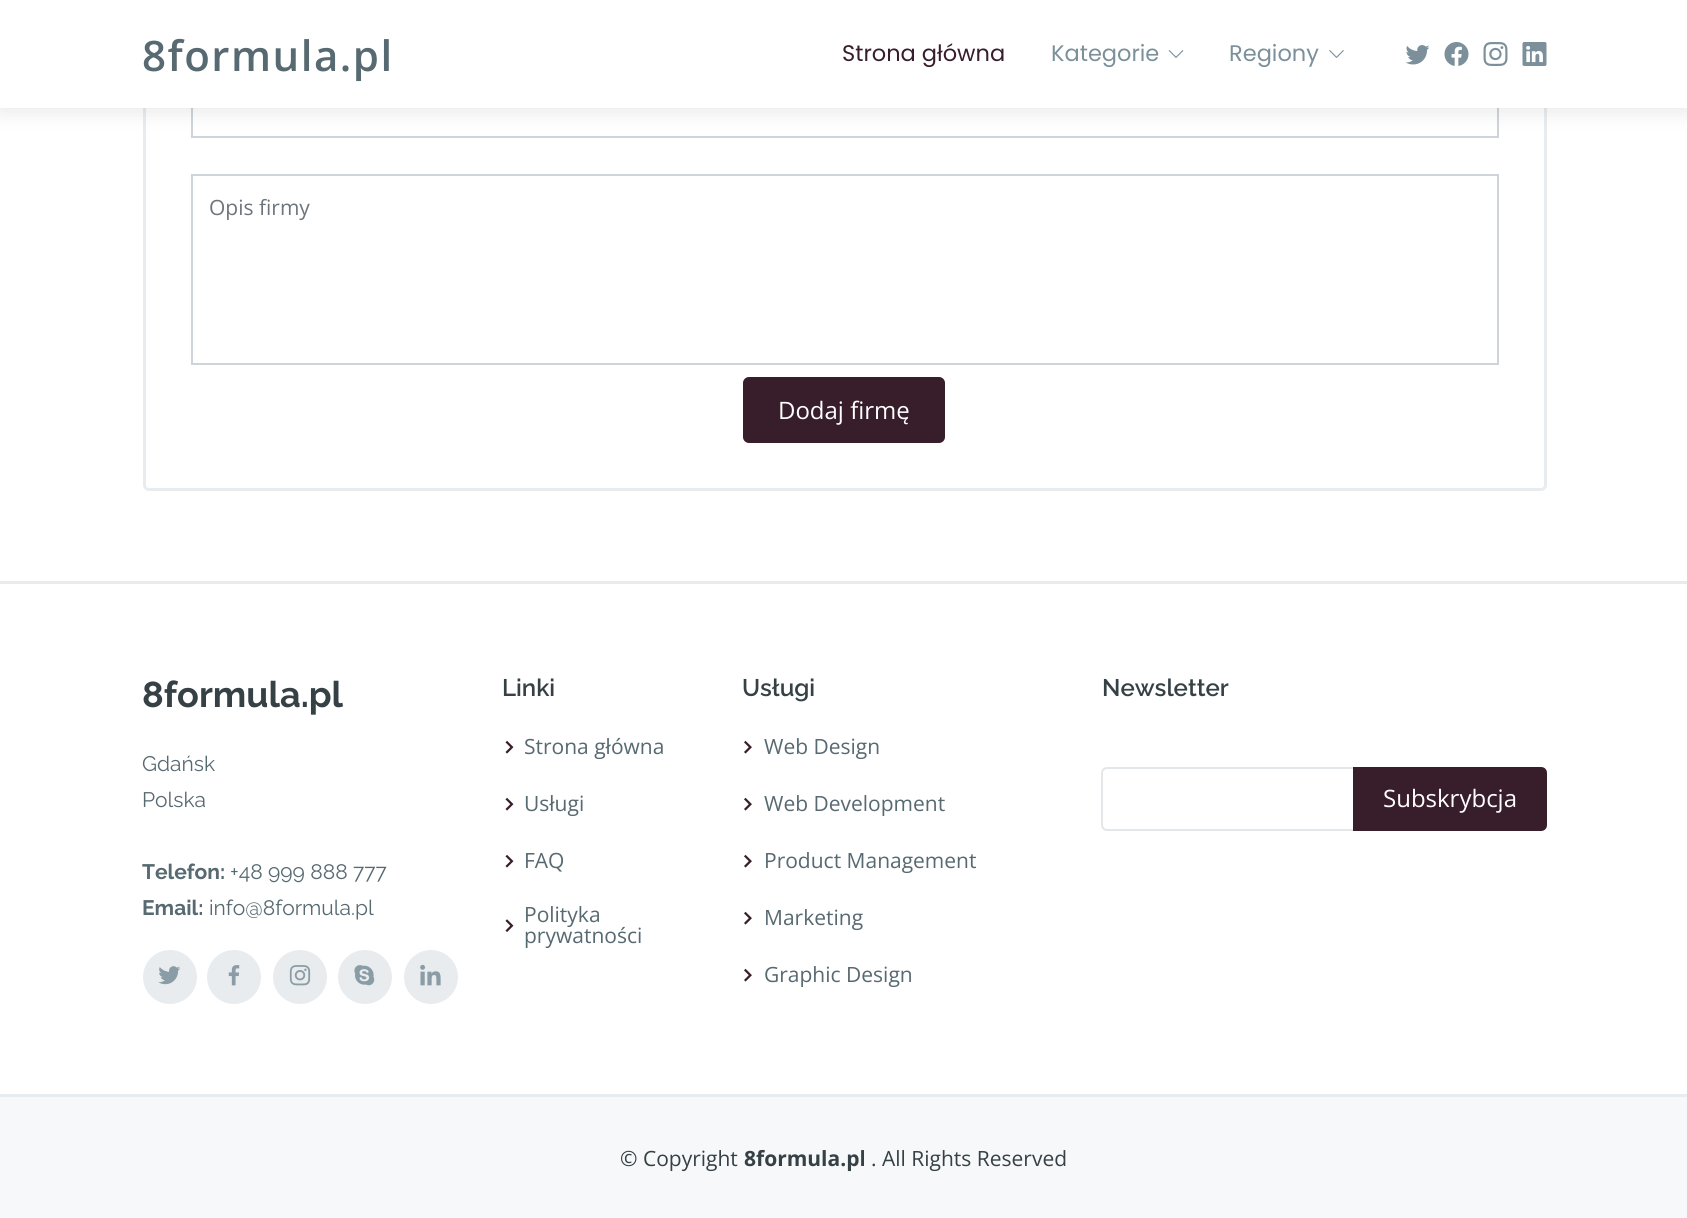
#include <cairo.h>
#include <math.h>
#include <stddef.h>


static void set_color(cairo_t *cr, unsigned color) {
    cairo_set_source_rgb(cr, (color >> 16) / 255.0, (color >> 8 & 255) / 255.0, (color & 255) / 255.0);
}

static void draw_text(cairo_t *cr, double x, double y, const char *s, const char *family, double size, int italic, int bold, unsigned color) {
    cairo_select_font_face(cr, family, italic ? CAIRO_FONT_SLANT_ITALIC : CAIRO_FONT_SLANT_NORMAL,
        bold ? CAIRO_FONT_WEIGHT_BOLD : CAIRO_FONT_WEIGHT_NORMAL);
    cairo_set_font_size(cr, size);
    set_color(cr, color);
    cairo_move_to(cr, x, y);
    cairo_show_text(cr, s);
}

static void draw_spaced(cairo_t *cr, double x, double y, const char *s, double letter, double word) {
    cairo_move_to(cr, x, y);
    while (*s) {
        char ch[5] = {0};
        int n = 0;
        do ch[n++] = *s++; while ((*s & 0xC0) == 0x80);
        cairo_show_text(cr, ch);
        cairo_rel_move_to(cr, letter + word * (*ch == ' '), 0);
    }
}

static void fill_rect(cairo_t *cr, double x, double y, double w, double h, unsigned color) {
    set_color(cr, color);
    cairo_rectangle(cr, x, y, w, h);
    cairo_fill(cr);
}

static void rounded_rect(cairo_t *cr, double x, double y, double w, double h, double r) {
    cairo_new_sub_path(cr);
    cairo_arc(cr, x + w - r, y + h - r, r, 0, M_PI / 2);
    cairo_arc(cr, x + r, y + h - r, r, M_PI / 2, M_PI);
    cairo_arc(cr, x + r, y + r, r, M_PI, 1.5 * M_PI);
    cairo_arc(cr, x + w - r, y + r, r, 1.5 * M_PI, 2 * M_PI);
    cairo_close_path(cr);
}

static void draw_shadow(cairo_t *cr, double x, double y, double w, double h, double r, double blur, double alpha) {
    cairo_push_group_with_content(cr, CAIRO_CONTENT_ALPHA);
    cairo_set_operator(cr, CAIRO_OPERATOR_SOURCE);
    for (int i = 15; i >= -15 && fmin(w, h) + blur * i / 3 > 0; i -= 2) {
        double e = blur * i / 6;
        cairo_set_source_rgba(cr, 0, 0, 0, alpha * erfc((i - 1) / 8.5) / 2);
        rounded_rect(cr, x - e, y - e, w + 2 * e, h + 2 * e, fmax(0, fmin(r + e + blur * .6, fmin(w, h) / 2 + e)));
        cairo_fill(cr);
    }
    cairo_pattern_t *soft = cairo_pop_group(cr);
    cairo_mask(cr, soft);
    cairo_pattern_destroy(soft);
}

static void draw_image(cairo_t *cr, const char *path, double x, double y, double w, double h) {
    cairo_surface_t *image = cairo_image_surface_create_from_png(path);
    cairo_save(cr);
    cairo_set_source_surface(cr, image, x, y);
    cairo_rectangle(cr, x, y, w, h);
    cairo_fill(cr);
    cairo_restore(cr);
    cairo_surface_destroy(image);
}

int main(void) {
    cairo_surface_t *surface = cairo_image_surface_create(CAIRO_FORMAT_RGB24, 1687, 1218);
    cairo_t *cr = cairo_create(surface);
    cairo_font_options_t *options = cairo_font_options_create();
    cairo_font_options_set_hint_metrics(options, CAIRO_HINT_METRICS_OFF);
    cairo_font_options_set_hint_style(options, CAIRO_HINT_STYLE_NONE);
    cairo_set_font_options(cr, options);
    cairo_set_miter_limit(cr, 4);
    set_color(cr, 0xFFFFFF);
    cairo_paint(cr);
    rounded_rect(cr, 144.5, -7.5, 1401, 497, 4.5);
    set_color(cr, 0xE9ECEE);
    cairo_set_line_width(cr, 3);
    cairo_stroke(cr);
    cairo_rectangle(cr, 192, 73, 1306, 64);
    set_color(cr, 0xCED4DA);
    cairo_set_line_width(cr, 2);
    cairo_stroke(cr);
    set_color(cr, 0x000000);
    draw_shadow(cr, 0, 3, 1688, 108, 0, 11, 0.1);
    fill_rect(cr, 0, 0, 1687, 108, 0xFFFFFF);
    cairo_select_font_face(cr, "Open Sans SemiBold", CAIRO_FONT_SLANT_NORMAL, CAIRO_FONT_WEIGHT_NORMAL);
    cairo_set_font_size(cr, 42);
    set_color(cr, 0x576971);
    draw_spaced(cr, 142, 71, "8formula.pl", 1.5, 0);
    draw_text(cr, 842, 61, "Strona główna", "Poppins", 22.5, 0, 0, 0x381D2A);
    draw_text(cr, 1051, 61, "Kategorie", "Poppins", 22.5, 0, 0, 0x7B909A);
    draw_image(cr, "assets/img1.png", 1168, 50, 16, 8);
    draw_text(cr, 1229, 61, "Regiony", "Poppins", 22.5, 0, 0, 0x7B909A);
    draw_image(cr, "assets/img2.png", 1329, 50, 15, 8);
    draw_image(cr, "assets/img3.png", 1405, 45, 25, 20);
    draw_image(cr, "assets/img4.png", 1444, 42, 25, 24);
    draw_image(cr, "assets/img5.png", 1483, 42, 25, 24);
    draw_image(cr, "assets/img6.png", 1522, 42, 25, 24);
    cairo_rectangle(cr, 192, 175, 1306, 189);
    set_color(cr, 0xCED4DA);
    cairo_stroke(cr);
    draw_text(cr, 209, 215, "Opis firmy", "Open Sans", 21, 0, 0, 0x6C757D);
    set_color(cr, 0x381D2A);
    rounded_rect(cr, 743, 377, 202, 66, 6);
    cairo_fill(cr);
    draw_text(cr, 778, 419, "Dodaj firmę", "Open Sans", 24, 0, 0, 0xFFFFFF);
    fill_rect(cr, 0, 1097, 1687, 121, 0xF7F8F9);
    fill_rect(cr, 0, 581, 1687, 3, 0xE9ECEE);
    fill_rect(cr, 0, 1094, 1687, 3, 0xE9ECEE);
    draw_text(cr, 142, 707, "8formula.pl", "Raleway", 36, 0, 1, 0x364146);
    draw_text(cr, 142, 771, "Gdańsk", "Raleway", 21, 0, 0, 0x576971);
    draw_text(cr, 142, 807, "Polska", "Raleway", 21, 0, 0, 0x576971);
    draw_text(cr, 142, 879, "Telefon:", "Raleway", 21, 0, 1, 0x576971);
    draw_text(cr, 230, 879, "+48 999 888 777", "Raleway", 21, 0, 0, 0x576971);
    draw_text(cr, 142, 915, "Email:", "Raleway", 21, 0, 1, 0x576971);
    draw_text(cr, 209, 915, "info@8formula.pl", "Raleway", 21, 0, 0, 0x576971);
    set_color(cr, 0xE9ECEE);
    cairo_new_path(cr);
    cairo_arc(cr, 170, 977, 27, 0, 2 * M_PI);
    cairo_fill(cr);
    draw_image(cr, "assets/img7.png", 158, 966, 23, 19);
    cairo_arc(cr, 234, 977, 27, 0, 2 * M_PI);
    cairo_fill(cr);
    draw_image(cr, "assets/img8.png", 228, 965, 12, 21);
    cairo_arc(cr, 300, 977, 27, 0, 2 * M_PI);
    cairo_fill(cr);
    draw_image(cr, "assets/img9.png", 289, 965, 22, 21);
    cairo_arc(cr, 365, 977, 27, 0, 2 * M_PI);
    cairo_fill(cr);
    draw_image(cr, "assets/img10.png", 354, 965, 21, 21);
    cairo_arc(cr, 431, 977, 27, 0, 2 * M_PI);
    cairo_fill(cr);
    draw_image(cr, "assets/img11.png", 420, 964, 21, 22);
    draw_text(cr, 502, 696, "Linki", "Raleway SemiBold", 24, 0, 0, 0x364146);
    draw_image(cr, "assets/img12.png", 505, 740, 9, 14);
    draw_text(cr, 524, 754, "Strona główna", "Open Sans", 21, 0, 0, 0x576971);
    draw_image(cr, "assets/img12.png", 505, 797, 9, 14);
    draw_text(cr, 524, 811, "Usługi", "Open Sans", 21, 0, 0, 0x576971);
    draw_image(cr, "assets/img12.png", 505, 854, 9, 14);
    draw_text(cr, 524, 868, "FAQ", "Open Sans", 21, 0, 0, 0x576971);
    draw_image(cr, "assets/img13.png", 505, 919, 9, 13);
    draw_text(cr, 524, 922, "Polityka", "Open Sans", 21, 0, 0, 0x576971);
    draw_text(cr, 524, 943, "prywatności", "Open Sans", 21, 0, 0, 0x576971);
    draw_text(cr, 742, 696, "Usługi", "Raleway SemiBold", 24, 0, 0, 0x364146);
    draw_image(cr, "assets/img14.png", 744, 740, 8, 14);
    draw_text(cr, 764, 754, "Web Design", "Open Sans", 21, 0, 0, 0x576971);
    draw_image(cr, "assets/img14.png", 744, 797, 8, 14);
    draw_text(cr, 764, 811, "Web Development", "Open Sans", 21, 0, 0, 0x576971);
    draw_image(cr, "assets/img14.png", 744, 854, 8, 14);
    draw_text(cr, 764, 868, "Product Management", "Open Sans", 21, 0, 0, 0x576971);
    draw_image(cr, "assets/img14.png", 744, 911, 8, 14);
    draw_text(cr, 764, 925, "Marketing", "Open Sans", 21, 0, 0, 0x576971);
    draw_image(cr, "assets/img14.png", 744, 968, 8, 14);
    draw_text(cr, 764, 982, "Graphic Design", "Open Sans", 21, 0, 0, 0x576971);
    draw_text(cr, 1102, 696, "Newsletter", "Raleway SemiBold", 24, 0, 0, 0x364146);
    rounded_rect(cr, 1102, 768, 442, 62, 5);
    set_color(cr, 0xE3E7E9);
    cairo_stroke(cr);
    set_color(cr, 0x381D2A);
    cairo_new_path(cr);
    cairo_move_to(cr, 1353, 767);
    cairo_line_to(cr, 1541, 767);
    cairo_curve_to(cr, 1544.5, 767, 1547, 769.5, 1547, 773);
    cairo_line_to(cr, 1547, 825);
    cairo_curve_to(cr, 1547, 828.5, 1544.5, 831, 1541, 831);
    cairo_line_to(cr, 1353, 831);
    cairo_close_path(cr);
    cairo_fill(cr);
    draw_text(cr, 1383, 807, "Subskrybcja", "Open Sans", 24, 0, 0, 0xFFFFFF);
    draw_text(cr, 620, 1166, "© Copyright", "Open Sans", 21, 0, 0, 0x364146);
    draw_text(cr, 744, 1166, "8formula.pl", "Open Sans", 21, 0, 1, 0x364146);
    draw_text(cr, 871, 1166, ". All Rights Reserved", "Open Sans", 21, 0, 0, 0x364146);
    cairo_surface_write_to_png(surface, "output.png");
    cairo_font_options_destroy(options);
    cairo_destroy(cr);
    cairo_surface_destroy(surface);
    return 0;
}
